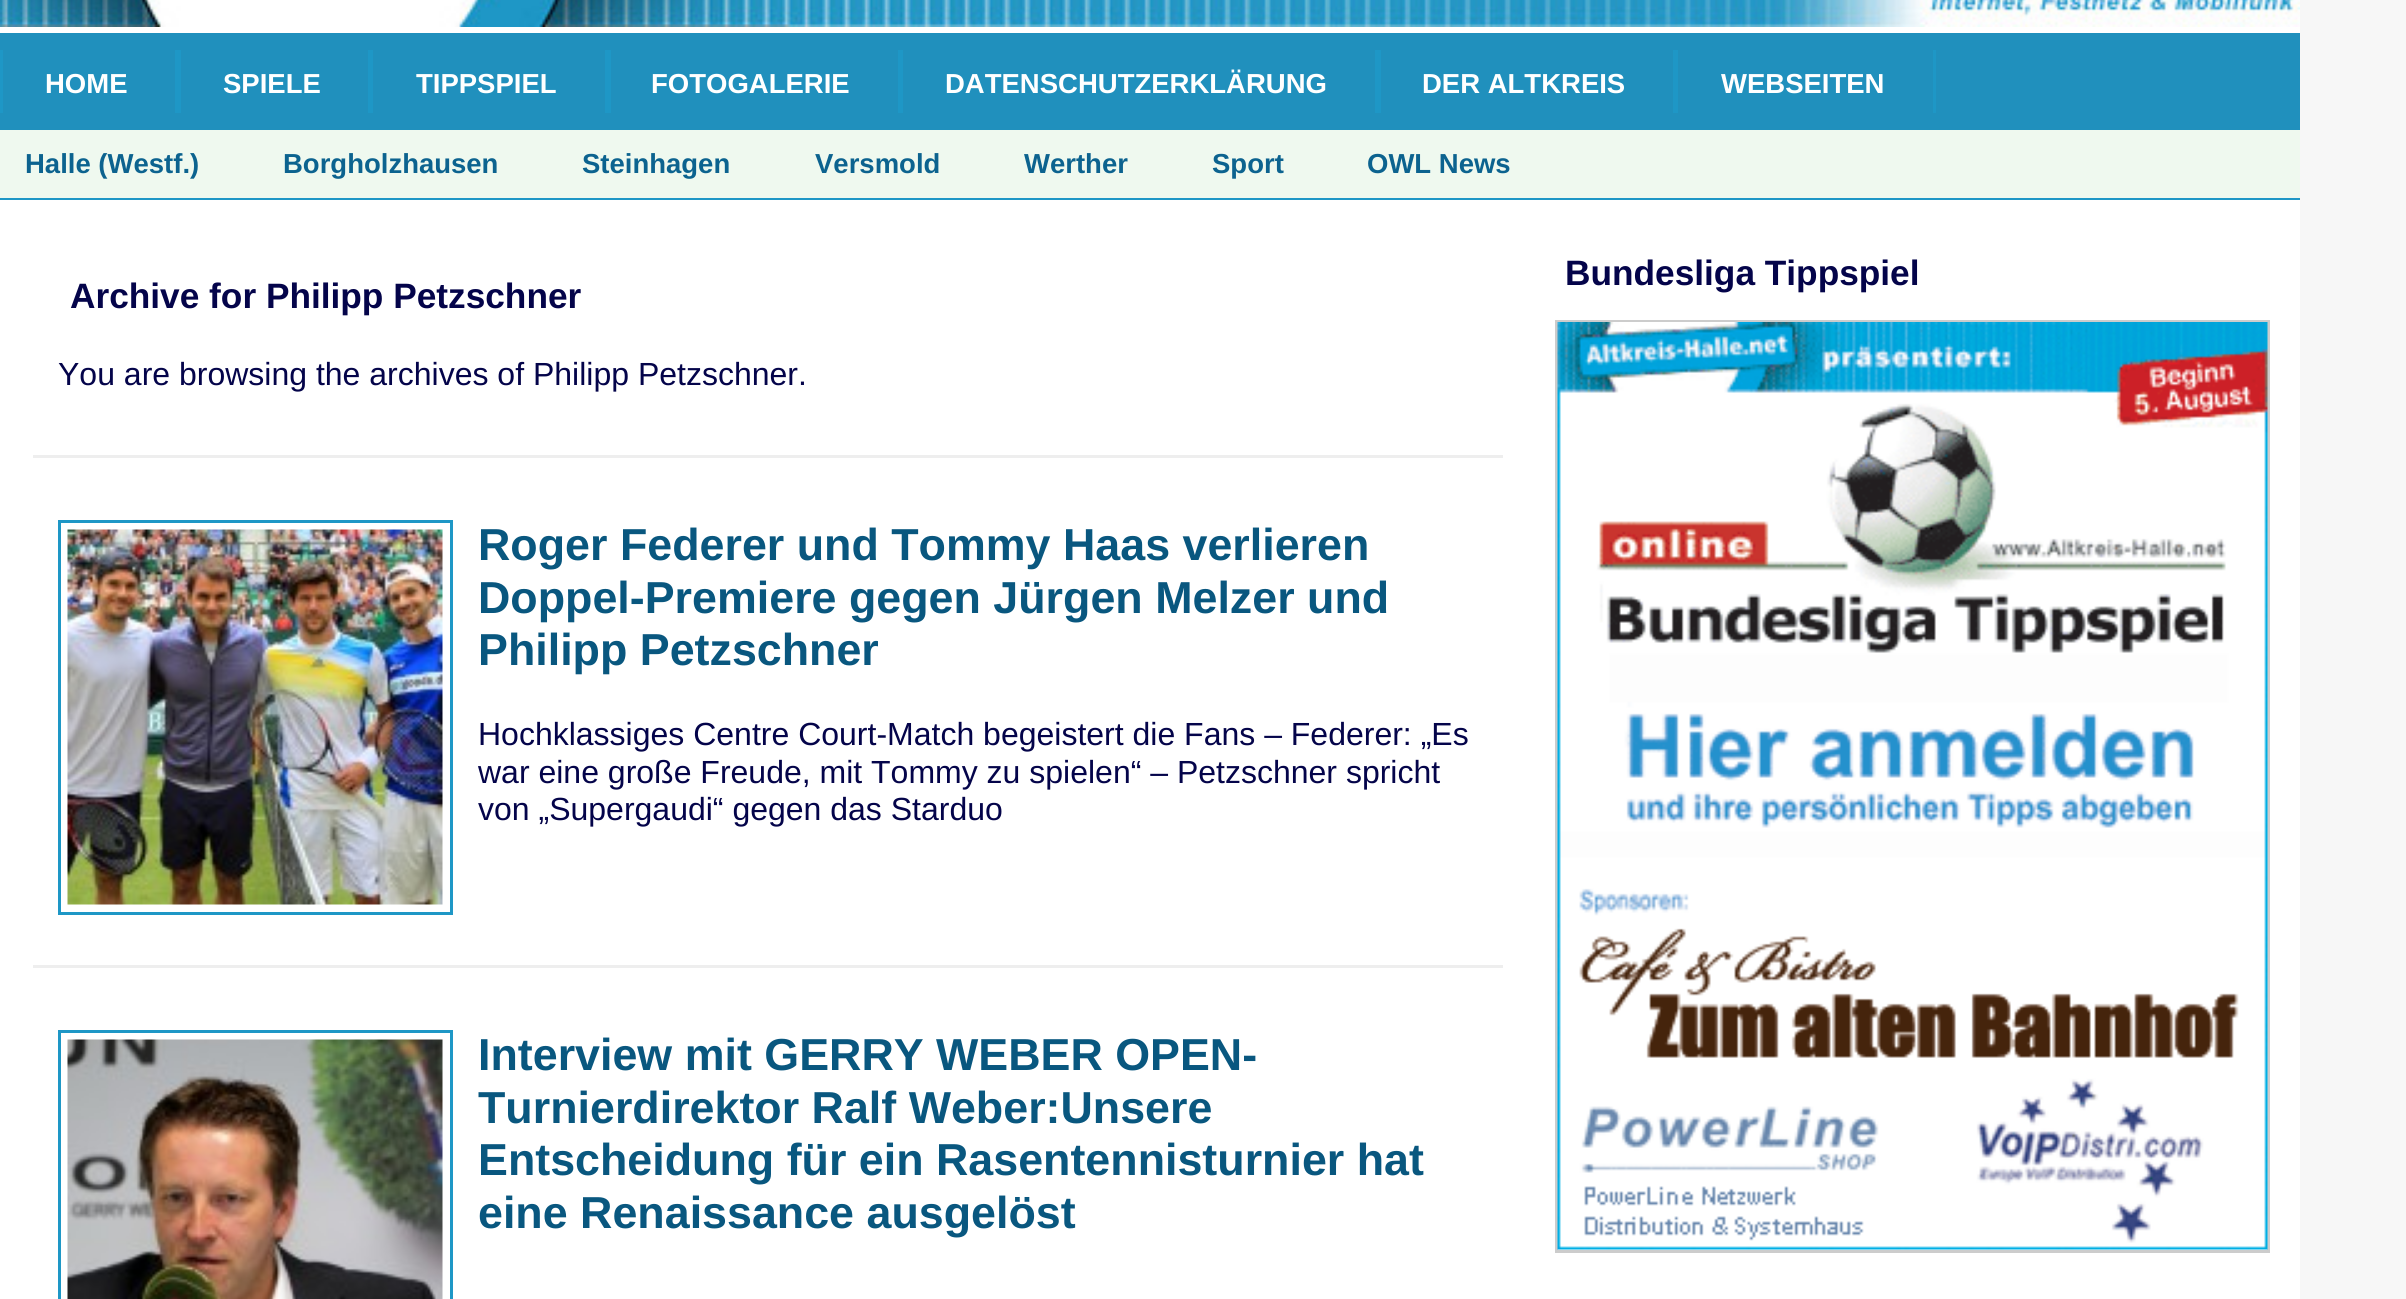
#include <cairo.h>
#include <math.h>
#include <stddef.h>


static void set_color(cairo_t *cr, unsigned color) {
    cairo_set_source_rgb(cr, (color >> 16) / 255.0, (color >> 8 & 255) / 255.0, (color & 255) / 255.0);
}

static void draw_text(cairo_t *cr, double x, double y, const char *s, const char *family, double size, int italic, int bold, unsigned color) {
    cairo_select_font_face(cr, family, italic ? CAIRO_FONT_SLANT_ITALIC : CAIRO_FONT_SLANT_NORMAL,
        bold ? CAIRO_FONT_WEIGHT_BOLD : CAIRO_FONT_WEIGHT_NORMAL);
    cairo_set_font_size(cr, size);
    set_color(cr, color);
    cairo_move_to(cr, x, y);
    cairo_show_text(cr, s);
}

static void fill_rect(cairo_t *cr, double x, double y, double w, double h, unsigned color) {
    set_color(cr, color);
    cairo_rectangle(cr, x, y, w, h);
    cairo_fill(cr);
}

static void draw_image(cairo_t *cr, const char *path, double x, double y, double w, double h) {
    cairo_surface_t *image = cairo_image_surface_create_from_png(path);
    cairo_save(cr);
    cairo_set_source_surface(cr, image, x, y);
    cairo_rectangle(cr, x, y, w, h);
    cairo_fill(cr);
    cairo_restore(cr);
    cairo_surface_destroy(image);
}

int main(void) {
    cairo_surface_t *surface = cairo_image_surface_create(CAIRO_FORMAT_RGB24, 2406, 1299);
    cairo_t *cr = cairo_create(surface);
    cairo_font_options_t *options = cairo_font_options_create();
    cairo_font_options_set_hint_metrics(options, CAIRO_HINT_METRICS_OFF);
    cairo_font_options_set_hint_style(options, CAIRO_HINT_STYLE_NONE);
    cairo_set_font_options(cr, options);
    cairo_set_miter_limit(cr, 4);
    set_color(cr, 0xF7F7F7);
    cairo_paint(cr);
    fill_rect(cr, 0, 27, 2300, 1272, 0xFFFFFF);
    draw_image(cr, "assets/img1.png", 0, 0, 2300, 27);
    fill_rect(cr, 0, 33, 2300, 97, 0x2090BD);
    draw_text(cr, 45, 93, "HOME", "Liberation Sans", 27.5, 0, 1, 0xFFFFFF);
    fill_rect(cr, 175, 50, 6, 63, 0x1E97C6);
    fill_rect(cr, 0, 50, 3, 63, 0x1E97C6);
    draw_text(cr, 223, 93, "SPIELE", "Liberation Sans", 27.5, 0, 1, 0xFFFFFF);
    fill_rect(cr, 368, 50, 5, 63, 0x1E97C6);
    draw_text(cr, 416, 93, "TIPPSPIEL", "Liberation Sans", 27.5, 0, 1, 0xFFFFFF);
    fill_rect(cr, 605, 50, 6, 63, 0x1E97C6);
    draw_text(cr, 651, 93, "FOTOGALERIE", "Liberation Sans", 27.5, 0, 1, 0xFFFFFF);
    fill_rect(cr, 898, 50, 5, 63, 0x1E97C6);
    draw_text(cr, 945, 93, "DATENSCHUTZERKLÄRUNG", "Liberation Sans", 27.5, 0, 1, 0xFFFFFF);
    fill_rect(cr, 1375, 50, 6, 63, 0x1E97C6);
    draw_text(cr, 1422, 93, "DER ALTKREIS", "Liberation Sans", 27.5, 0, 1, 0xFFFFFF);
    fill_rect(cr, 1673, 50, 5, 63, 0x1E97C6);
    draw_text(cr, 1721, 93, "WEBSEITEN", "Liberation Sans", 27.5, 0, 1, 0xFFFFFF);
    fill_rect(cr, 1933, 50, 3, 63, 0x1E97C6);
    fill_rect(cr, 0, 130, 2300, 68, 0xEFF9EF);
    fill_rect(cr, 0, 198, 2300, 2, 0x1E97C6);
    draw_text(cr, 25, 173, "Halle (Westf.)", "Liberation Sans", 27.5, 0, 1, 0x0C638F);
    draw_text(cr, 283, 173, "Borgholzhausen", "Liberation Sans", 27.5, 0, 1, 0x0C638F);
    draw_text(cr, 582, 173, "Steinhagen", "Liberation Sans", 27.5, 0, 1, 0x0C638F);
    draw_text(cr, 815, 173, "Versmold", "Liberation Sans", 27.5, 0, 1, 0x0C638F);
    draw_text(cr, 1024, 173, "Werther", "Liberation Sans", 27.5, 0, 1, 0x0C638F);
    draw_text(cr, 1212, 173, "Sport", "Liberation Sans", 27.5, 0, 1, 0x0C638F);
    draw_text(cr, 1367, 173, "OWL News", "Liberation Sans", 27.5, 0, 1, 0x0C638F);
    draw_text(cr, 1565, 285, "Bundesliga Tippspiel", "Liberation Sans", 35.25, 0, 1, 0x04044A);
    cairo_rectangle(cr, 1556.5, 321.5, 712, 930);
    set_color(cr, 0xCCCCCC);
    cairo_set_line_width(cr, 3);
    cairo_stroke(cr);
    draw_image(cr, "assets/img2.png", 1557, 322, 711, 928);
    fill_rect(cr, 33, 455, 1470, 3, 0xEEEEEE);
    draw_text(cr, 70, 308, "Archive for Philipp Petzschner", "Liberation Sans", 35.25, 0, 1, 0x04044A);
    draw_text(cr, 58, 385, "You are browsing the archives of Philipp Petzschner.", "Liberation Sans", 32, 0, 0, 0x04044A);
    fill_rect(cr, 33, 965, 1470, 3, 0xEEEEEE);
    cairo_rectangle(cr, 59.5, 521.5, 392, 392);
    set_color(cr, 0x1E97C6);
    cairo_stroke(cr);
    draw_image(cr, "assets/img3.png", 67, 529, 376, 376);
    draw_text(cr, 478, 560, "Roger Federer und Tommy Haas verlieren", "Liberation Sans", 44.8, 0, 1, 0x09577F);
    draw_text(cr, 478, 613, "Doppel-Premiere gegen Jürgen Melzer und", "Liberation Sans", 44.8, 0, 1, 0x09577F);
    draw_text(cr, 478, 665, "Philipp Petzschner", "Liberation Sans", 44.8, 0, 1, 0x09577F);
    draw_text(cr, 478, 745, "Hochklassiges Centre Court-Match begeistert die Fans – Federer: „Es", "Liberation Sans", 32, 0, 0, 0x04044A);
    draw_text(cr, 478, 783, "war eine große Freude, mit Tommy zu spielen“ – Petzschner spricht", "Liberation Sans", 32, 0, 0, 0x04044A);
    draw_text(cr, 478, 820, "von „Supergaudi“ gegen das Starduo", "Liberation Sans", 32, 0, 0, 0x04044A);
    cairo_rectangle(cr, 59.5, 1031.5, 392, 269);
    set_color(cr, 0x1E97C6);
    cairo_stroke(cr);
    draw_image(cr, "assets/img4.png", 67, 1039, 376, 260);
    draw_text(cr, 478, 1070, "Interview mit GERRY WEBER OPEN-", "Liberation Sans", 44.8, 0, 1, 0x09577F);
    draw_text(cr, 478, 1123, "Turnierdirektor Ralf Weber:Unsere", "Liberation Sans", 44.8, 0, 1, 0x09577F);
    draw_text(cr, 478, 1175, "Entscheidung für ein Rasentennisturnier hat", "Liberation Sans", 44.8, 0, 1, 0x09577F);
    draw_text(cr, 478, 1228, "eine Renaissance ausgelöst", "Liberation Sans", 44.8, 0, 1, 0x09577F);
    cairo_surface_write_to_png(surface, "output.png");
    cairo_font_options_destroy(options);
    cairo_destroy(cr);
    cairo_surface_destroy(surface);
    return 0;
}
